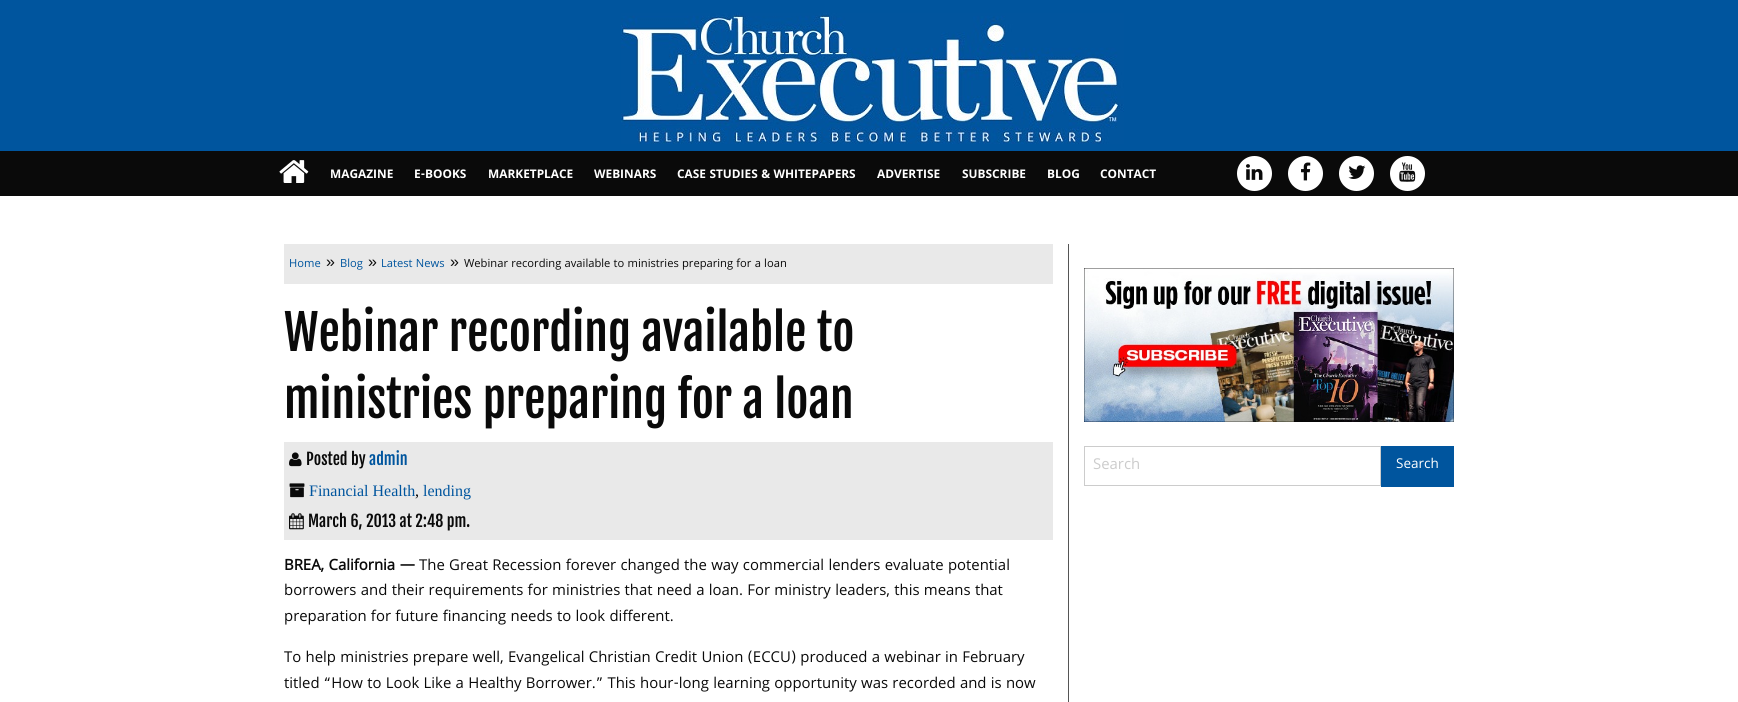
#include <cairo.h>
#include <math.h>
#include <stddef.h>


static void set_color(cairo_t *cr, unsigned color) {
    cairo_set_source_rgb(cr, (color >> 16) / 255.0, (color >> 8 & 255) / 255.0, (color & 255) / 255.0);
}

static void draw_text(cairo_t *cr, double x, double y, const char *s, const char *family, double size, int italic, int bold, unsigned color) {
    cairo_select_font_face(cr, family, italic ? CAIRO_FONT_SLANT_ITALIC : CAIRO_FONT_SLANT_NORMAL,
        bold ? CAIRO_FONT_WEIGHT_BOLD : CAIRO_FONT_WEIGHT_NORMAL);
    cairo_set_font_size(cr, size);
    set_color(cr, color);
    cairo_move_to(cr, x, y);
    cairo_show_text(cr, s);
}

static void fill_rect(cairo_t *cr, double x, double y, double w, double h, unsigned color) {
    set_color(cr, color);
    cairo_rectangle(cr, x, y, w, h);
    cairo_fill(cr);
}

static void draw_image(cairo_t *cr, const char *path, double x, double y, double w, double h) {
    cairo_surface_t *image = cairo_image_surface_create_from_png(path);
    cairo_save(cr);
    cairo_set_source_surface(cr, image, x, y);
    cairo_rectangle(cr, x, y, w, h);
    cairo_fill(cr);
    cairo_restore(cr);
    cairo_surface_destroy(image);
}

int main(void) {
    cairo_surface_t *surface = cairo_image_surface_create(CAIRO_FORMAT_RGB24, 1738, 702);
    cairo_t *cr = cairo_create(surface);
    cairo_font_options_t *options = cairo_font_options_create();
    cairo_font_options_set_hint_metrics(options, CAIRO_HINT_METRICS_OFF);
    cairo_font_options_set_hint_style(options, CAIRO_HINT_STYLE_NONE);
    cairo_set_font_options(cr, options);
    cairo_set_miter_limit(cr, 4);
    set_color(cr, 0xFFFFFF);
    cairo_paint(cr);
    fill_rect(cr, 0, 0, 1738, 151, 0x00559E);
    draw_image(cr, "assets/img1.png", 621, 13, 503, 131);
    fill_rect(cr, 0, 151, 1738, 45, 0x0A0A0A);
    draw_image(cr, "assets/img2.png", 279, 160, 30, 23);
    draw_text(cr, 330, 178, "MAGAZINE", "Khula", 12.75, 0, 1, 0xFFFFFF);
    draw_text(cr, 414, 178, "E-BOOKS", "Khula", 12.75, 0, 1, 0xFFFFFF);
    draw_text(cr, 488, 178, "MARKETPLACE", "Khula", 12.75, 0, 1, 0xFFFFFF);
    draw_text(cr, 594, 178, "WEBINARS", "Khula", 12.75, 0, 1, 0xFFFFFF);
    draw_text(cr, 677, 178, "CASE STUDIES & WHITEPAPERS", "Khula", 12.75, 0, 1, 0xFFFFFF);
    draw_text(cr, 877, 178, "ADVERTISE", "Khula", 12.75, 0, 1, 0xFFFFFF);
    draw_text(cr, 962, 178, "SUBSCRIBE", "Khula", 12.75, 0, 1, 0xFFFFFF);
    draw_text(cr, 1047, 178, "BLOG", "Khula", 12.75, 0, 1, 0xFFFFFF);
    draw_text(cr, 1100, 178, "CONTACT", "Khula", 12.75, 0, 1, 0xFFFFFF);
    cairo_new_path(cr);
    cairo_arc(cr, 1254.5, 173.5, 17.5, 0, 2 * M_PI);
    cairo_fill(cr);
    draw_image(cr, "assets/img3.png", 1246, 164, 17, 16);
    cairo_arc(cr, 1305.5, 173.5, 17.5, 0, 2 * M_PI);
    cairo_fill(cr);
    draw_image(cr, "assets/img4.png", 1301, 162, 10, 19);
    cairo_arc(cr, 1356.5, 173.5, 17.5, 0, 2 * M_PI);
    cairo_fill(cr);
    draw_image(cr, "assets/img5.png", 1348, 165, 18, 14);
    cairo_arc(cr, 1407.5, 173.5, 17.5, 0, 2 * M_PI);
    cairo_fill(cr);
    draw_image(cr, "assets/img6.png", 1399, 162, 17, 20);
    fill_rect(cr, 1068, 244, 1, 458, 0x555555);
    fill_rect(cr, 284, 244, 769, 40, 0xE9E9E9);
    draw_text(cr, 289, 267, "Home", "Khula", 12, 0, 0, 0x00559E);
    draw_text(cr, 326, 267, "»", "Liberation Sans", 16, 0, 0, 0x0A0A0A);
    draw_text(cr, 340, 267, "Blog", "Khula", 12, 0, 0, 0x00559E);
    draw_text(cr, 368, 267, "»", "Liberation Sans", 16, 0, 0, 0x0A0A0A);
    draw_text(cr, 381, 267, "Latest News", "Khula", 12, 0, 0, 0x00559E);
    draw_text(cr, 450, 267, "»", "Liberation Sans", 16, 0, 0, 0x0A0A0A);
    draw_text(cr, 464, 267, "Webinar recording available to ministries preparing for a loan", "Khula", 12, 0, 0, 0x0A0A0A);
    draw_text(cr, 284, 351, "Webinar recording available to", "Fjalla One", 48, 0, 0, 0x0A0A0A);
    draw_text(cr, 284, 418, "ministries preparing for a loan", "Fjalla One", 48, 0, 0, 0x0A0A0A);
    fill_rect(cr, 284, 442, 769, 98, 0xE9E9E9);
    draw_image(cr, "assets/img7.png", 289, 452, 13, 15);
    draw_text(cr, 306, 465, "Posted by", "Fjalla One", 16, 0, 0, 0x0A0A0A);
    draw_text(cr, 369, 465, "admin", "Fjalla One", 16, 0, 0, 0x00559E);
    draw_image(cr, "assets/img8.png", 289, 483, 16, 15);
    draw_text(cr, 309, 496, "Financial Health", "Liberation Serif", 16, 0, 0, 0x00559E);
    draw_text(cr, 415, 496, ",", "Liberation Serif", 16, 0, 0, 0x0A0A0A);
    draw_text(cr, 423, 496, "lending", "Liberation Serif", 16, 0, 0, 0x00559E);
    draw_image(cr, "assets/img9.png", 289, 513, 15, 17);
    draw_text(cr, 308, 527, "March 6, 2013 at 2:48 pm.", "Fjalla One", 16, 0, 0, 0x0A0A0A);
    draw_text(cr, 284, 570, "BREA, California —", "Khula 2", 16, 0, 1, 0x0A0A0A);
    draw_text(cr, 419, 570, "The Great Recession forever changed the way commercial lenders evaluate potential", "Khula", 16, 0, 0, 0x0A0A0A);
    draw_text(cr, 284, 595, "borrowers and their requirements for ministries that need a loan. For ministry leaders, this means that", "Khula", 16, 0, 0, 0x0A0A0A);
    draw_text(cr, 284, 621, "preparation for future financing needs to look different.", "Khula", 16, 0, 0, 0x0A0A0A);
    draw_text(cr, 284, 662, "To help ministries prepare well, Evangelical Christian Credit Union (ECCU) produced a webinar in February", "Khula", 16, 0, 0, 0x0A0A0A);
    draw_text(cr, 284, 688, "titled “How to Look Like a Healthy Borrower.” This hour-long learning opportunity was recorded and is now", "Khula", 16, 0, 0, 0x0A0A0A);
    draw_image(cr, "assets/img10.png", 1084, 268, 370, 154);
    cairo_rectangle(cr, 1084.5, 446.5, 296, 39);
    set_color(cr, 0xCCCCCC);
    cairo_set_line_width(cr, 1);
    cairo_stroke(cr);
    draw_text(cr, 1093, 469, "Search", "Khula", 16, 0, 0, 0xCCCCCC);
    fill_rect(cr, 1381, 446, 73, 41, 0x00559E);
    draw_text(cr, 1396, 468, "Search", "Khula", 14.5, 0, 0, 0xFFFFFF);
    cairo_surface_write_to_png(surface, "output.png");
    cairo_font_options_destroy(options);
    cairo_destroy(cr);
    cairo_surface_destroy(surface);
    return 0;
}
